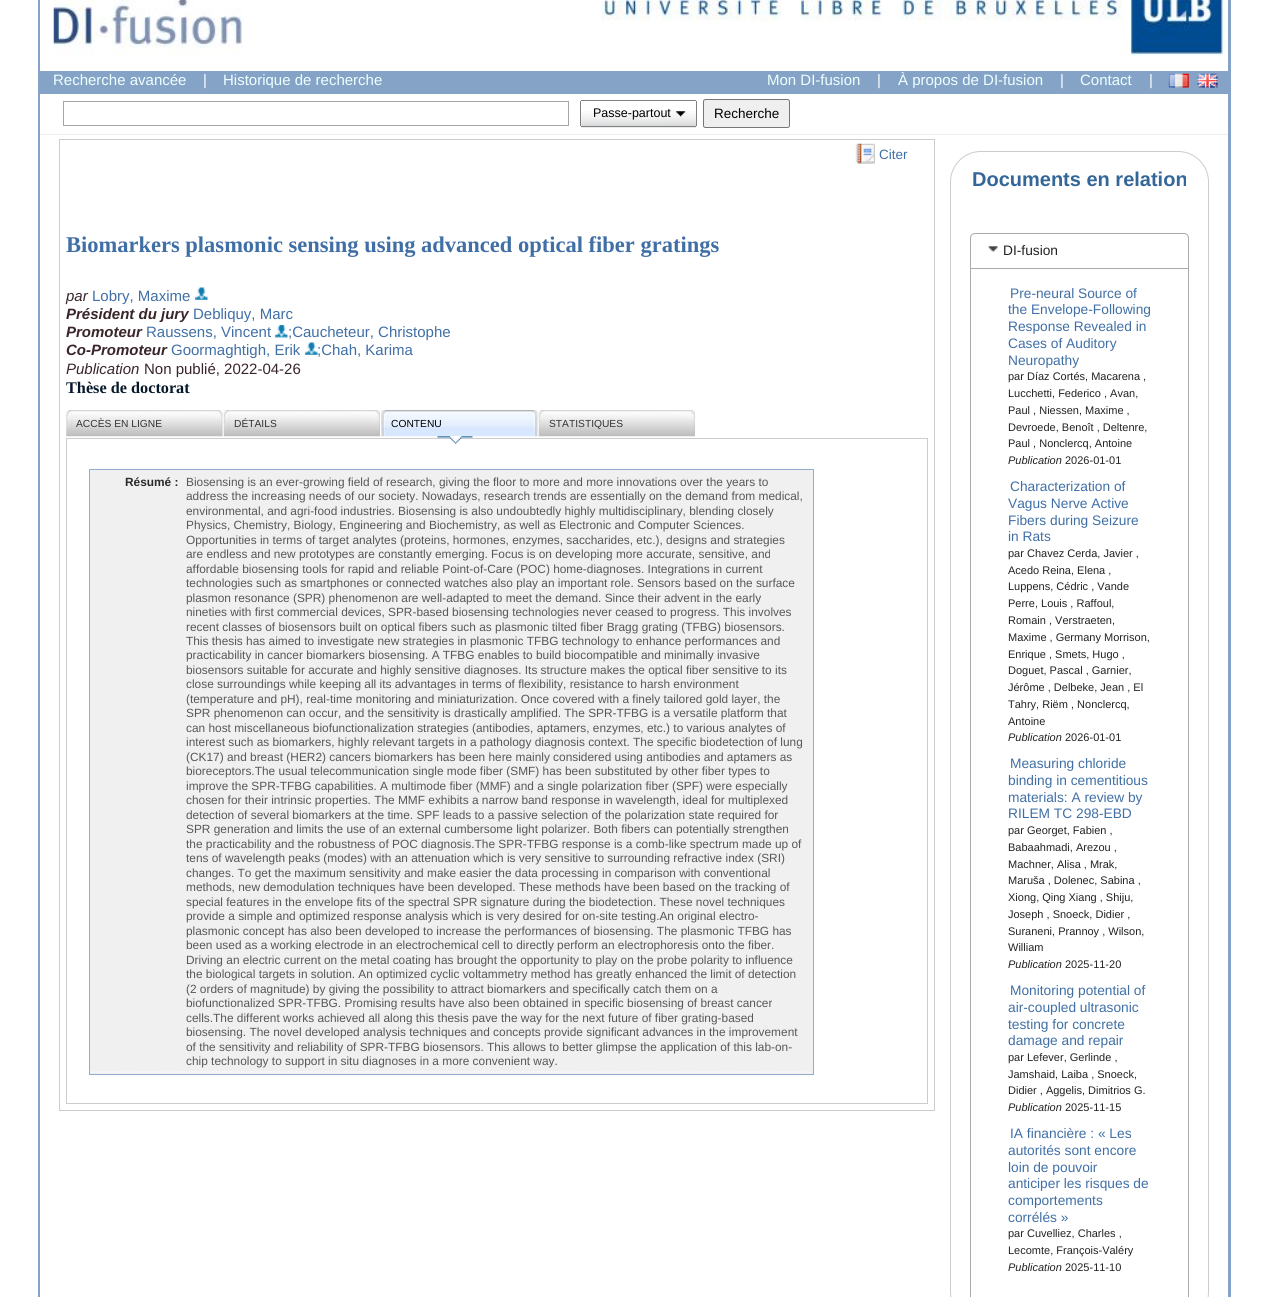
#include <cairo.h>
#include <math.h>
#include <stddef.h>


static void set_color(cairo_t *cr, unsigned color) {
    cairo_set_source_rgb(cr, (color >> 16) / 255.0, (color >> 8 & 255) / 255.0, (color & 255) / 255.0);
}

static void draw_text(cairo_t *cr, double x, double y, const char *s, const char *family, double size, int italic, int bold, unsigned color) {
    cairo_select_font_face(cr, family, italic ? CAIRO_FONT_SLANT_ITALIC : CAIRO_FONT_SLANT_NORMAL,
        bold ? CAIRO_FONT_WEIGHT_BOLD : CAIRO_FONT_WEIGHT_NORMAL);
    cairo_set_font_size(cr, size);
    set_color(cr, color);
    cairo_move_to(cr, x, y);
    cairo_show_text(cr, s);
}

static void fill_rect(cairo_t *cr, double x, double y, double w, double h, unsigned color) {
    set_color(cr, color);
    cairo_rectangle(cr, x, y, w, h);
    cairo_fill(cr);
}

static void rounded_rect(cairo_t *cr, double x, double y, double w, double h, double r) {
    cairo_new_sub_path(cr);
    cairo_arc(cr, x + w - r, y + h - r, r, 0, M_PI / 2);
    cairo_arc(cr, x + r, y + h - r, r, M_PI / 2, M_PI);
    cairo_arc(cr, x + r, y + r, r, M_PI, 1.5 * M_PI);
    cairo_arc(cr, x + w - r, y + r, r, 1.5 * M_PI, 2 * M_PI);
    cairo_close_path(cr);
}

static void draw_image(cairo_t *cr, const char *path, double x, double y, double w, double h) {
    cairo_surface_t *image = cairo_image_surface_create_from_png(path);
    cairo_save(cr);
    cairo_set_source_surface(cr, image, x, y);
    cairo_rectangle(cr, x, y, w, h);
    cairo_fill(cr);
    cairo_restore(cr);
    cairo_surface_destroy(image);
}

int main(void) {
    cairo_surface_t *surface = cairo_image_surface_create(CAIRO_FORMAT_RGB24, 1267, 1297);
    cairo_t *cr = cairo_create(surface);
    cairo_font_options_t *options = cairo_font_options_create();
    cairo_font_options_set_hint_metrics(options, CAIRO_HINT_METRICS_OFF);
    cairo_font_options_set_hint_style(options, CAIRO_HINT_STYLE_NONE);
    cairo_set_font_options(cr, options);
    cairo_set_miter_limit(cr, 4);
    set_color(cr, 0xFFFFFF);
    cairo_paint(cr);
    fill_rect(cr, 38, 0, 2, 1297, 0x85A3C6);
    fill_rect(cr, 1228, 0, 3, 1297, 0x85A3C6);
    draw_image(cr, "assets/img1.png", 53, 0, 190, 57);
    draw_image(cr, "assets/img2.png", 601, 0, 625, 57);
    fill_rect(cr, 40, 71, 1188, 23, 0x85A3C6);
    draw_text(cr, 53, 85, "Recherche avancée", "Liberation Sans", 15, 0, 0, 0xEEFFFF);
    draw_text(cr, 203, 85, "|", "Liberation Sans", 15, 0, 0, 0xFFFFFF);
    draw_text(cr, 223, 85, "Historique de recherche", "Liberation Sans", 15, 0, 0, 0xEEFFFF);
    draw_text(cr, 767, 85, "Mon DI-fusion", "Liberation Sans", 15, 0, 0, 0xEEFFFF);
    draw_text(cr, 877, 85, "|", "Liberation Sans", 15, 0, 0, 0xFFFFFF);
    draw_text(cr, 898, 85, "À propos de DI-fusion", "Liberation Sans", 15, 0, 0, 0xEEFFFF);
    draw_text(cr, 1060, 85, "|", "Liberation Sans", 15, 0, 0, 0xFFFFFF);
    draw_text(cr, 1080, 85, "Contact", "Liberation Sans", 15, 0, 0, 0xEEFFFF);
    draw_text(cr, 1149, 85, "|", "Liberation Sans", 15, 0, 0, 0xFFFFFF);
    draw_image(cr, "assets/img3.png", 1168, 73, 21, 15);
    draw_image(cr, "assets/img4.png", 1197, 73, 21, 15);
    cairo_rectangle(cr, 63.5, 101.5, 505, 24);
    set_color(cr, 0xA6A6A6);
    cairo_set_line_width(cr, 1);
    cairo_stroke(cr);
    draw_image(cr, "assets/img5.png", 581, 111, 116, 17);
    fill_rect(cr, 581, 100, 115, 1, 0x808080);
    fill_rect(cr, 581, 126, 115, 1, 0x808080);
    fill_rect(cr, 696, 101, 1, 25, 0x808080);
    fill_rect(cr, 580, 101, 1, 25, 0x808080);
    draw_image(cr, "assets/img6.png", 676, 111, 10, 6);
    draw_text(cr, 593, 117, "Passe-partout", "Liberation Sans", 12.5, 0, 0, 0x000000);
    set_color(cr, 0xEFEFEF);
    rounded_rect(cr, 703.5, 99.5, 86, 28, 2);
    cairo_fill_preserve(cr);
    set_color(cr, 0x767676);
    cairo_stroke(cr);
    draw_text(cr, 714, 118, "Recherche", "Liberation Sans", 13.5, 0, 0, 0x000000);
    fill_rect(cr, 40, 134, 1188, 1, 0xEEEEEE);
    cairo_rectangle(cr, 59.5, 139.5, 875, 971);
    set_color(cr, 0xCCCCCC);
    cairo_stroke(cr);
    draw_image(cr, "assets/img7.png", 855, 143, 20, 21);
    draw_text(cr, 879, 159, "Citer", "Liberation Sans", 13.5, 0, 0, 0x406FA6);
    draw_text(cr, 66, 252, "Biomarkers plasmonic sensing using advanced optical fiber gratings", "Liberation Serif", 22.5, 0, 1, 0x406FA6);
    draw_text(cr, 66, 301, "par", "Liberation Sans", 15, 1, 0, 0x392529);
    draw_text(cr, 92, 301, "Lobry, Maxime", "Liberation Sans", 15, 0, 0, 0x406FA6);
    draw_image(cr, "assets/img8.png", 195, 287, 13, 13);
    draw_text(cr, 66, 319, "Président du jury", "Liberation Sans", 15, 1, 1, 0x392529);
    draw_text(cr, 193, 319, "Debliquy, Marc", "Liberation Sans", 15, 0, 0, 0x406FA6);
    draw_text(cr, 66, 337, "Promoteur", "Liberation Sans", 15, 1, 1, 0x392529);
    draw_text(cr, 146, 337, "Raussens, Vincent", "Liberation Sans", 15, 0, 0, 0x406FA6);
    draw_image(cr, "assets/img9.png", 275, 325, 13, 13);
    draw_text(cr, 288, 337, ";Caucheteur, Christophe", "Liberation Sans", 15, 0, 0, 0x406FA6);
    draw_text(cr, 66, 355, "Co-Promoteur", "Liberation Sans", 15, 1, 1, 0x392529);
    draw_text(cr, 171, 355, "Goormaghtigh, Erik", "Liberation Sans", 15, 0, 0, 0x406FA6);
    draw_image(cr, "assets/img8.png", 305, 342, 13, 13);
    draw_text(cr, 317, 355, ";Chah, Karima", "Liberation Sans", 15, 0, 0, 0x406FA6);
    draw_text(cr, 66, 374, "Publication", "Liberation Sans", 15, 1, 0, 0x392529);
    draw_text(cr, 144, 374, "Non publié, 2022-04-26", "Liberation Sans", 15, 0, 0, 0x392529);
    draw_text(cr, 66, 393, "Thèse de doctorat", "Liberation Serif", 16.25, 0, 1, 0x071829);
    draw_image(cr, "assets/img10.png", 66, 410, 157, 27);
    draw_text(cr, 76, 427, "ACCÈS EN LIGNE", "Liberation Sans", 10.25, 0, 0, 0x333333);
    draw_image(cr, "assets/img11.png", 223, 410, 157, 27);
    draw_text(cr, 234, 427, "DÉTAILS", "Liberation Sans", 10.25, 0, 0, 0x333333);
    draw_image(cr, "assets/img12.png", 381, 410, 157, 27);
    draw_text(cr, 391, 427, "CONTENU", "Liberation Sans", 10.25, 0, 0, 0x000000);
    cairo_rectangle(cr, 66.5, 438.5, 861, 665);
    set_color(cr, 0xCCCCCC);
    cairo_stroke(cr);
    draw_image(cr, "assets/img13.png", 437, 436, 36, 8);
    draw_image(cr, "assets/img11.png", 538, 410, 157, 27);
    draw_text(cr, 549, 427, "STATISTIQUES", "Liberation Sans", 10.25, 0, 0, 0x333333);
    fill_rect(cr, 90, 470, 723, 604, 0xF0F0F0);
    fill_rect(cr, 89, 469, 725, 1, 0x91ACCC);
    fill_rect(cr, 813, 469, 1, 606, 0x91ACCC);
    fill_rect(cr, 89, 1074, 725, 1, 0x91ACCC);
    fill_rect(cr, 89, 469, 1, 606, 0x91ACCC);
    cairo_new_path(cr);
    cairo_move_to(cr, 91, 1072);
    cairo_line_to(cr, 811, 1072);
    set_color(cr, 0xFFFFFF);
    cairo_set_line_width(cr, 1.2);
    cairo_set_dash(cr, (double[]){1.25, 1.25}, 2, 0);
    cairo_stroke(cr);
    draw_text(cr, 125, 486, "Résumé :", "Liberation Sans", 11.88, 0, 1, 0x292929);
    draw_text(cr, 186, 486, "Biosensing is an ever-growing field of research, giving the floor to more and more innovations over the years to", "Liberation Sans", 11.88, 0, 0, 0x575757);
    draw_text(cr, 186, 500, "address the increasing needs of our society. Nowadays, research trends are essentially on the demand from medical,", "Liberation Sans", 11.88, 0, 0, 0x575757);
    draw_text(cr, 186, 515, "environmental, and agri-food industries. Biosensing is also undoubtedly highly multidisciplinary, blending closely", "Liberation Sans", 11.88, 0, 0, 0x575757);
    draw_text(cr, 186, 529, "Physics, Chemistry, Biology, Engineering and Biochemistry, as well as Electronic and Computer Sciences.", "Liberation Sans", 11.88, 0, 0, 0x575757);
    draw_text(cr, 186, 544, "Opportunities in terms of target analytes (proteins, hormones, enzymes, saccharides, etc.), designs and strategies", "Liberation Sans", 11.88, 0, 0, 0x575757);
    draw_text(cr, 186, 558, "are endless and new prototypes are constantly emerging. Focus is on developing more accurate, sensitive, and", "Liberation Sans", 11.88, 0, 0, 0x575757);
    draw_text(cr, 186, 573, "affordable biosensing tools for rapid and reliable Point-of-Care (POC) home-diagnoses. Integrations in current", "Liberation Sans", 11.88, 0, 0, 0x575757);
    draw_text(cr, 186, 587, "technologies such as smartphones or connected watches also play an important role. Sensors based on the surface", "Liberation Sans", 11.88, 0, 0, 0x575757);
    draw_text(cr, 186, 602, "plasmon resonance (SPR) phenomenon are well-adapted to meet the demand. Since their advent in the early", "Liberation Sans", 11.88, 0, 0, 0x575757);
    draw_text(cr, 186, 616, "nineties with first commercial devices, SPR-based biosensing technologies never ceased to progress. This involves", "Liberation Sans", 11.88, 0, 0, 0x575757);
    draw_text(cr, 186, 631, "recent classes of biosensors built on optical fibers such as plasmonic tilted fiber Bragg grating (TFBG) biosensors.", "Liberation Sans", 11.88, 0, 0, 0x575757);
    draw_text(cr, 186, 645, "This thesis has aimed to investigate new strategies in plasmonic TFBG technology to enhance performances and", "Liberation Sans", 11.88, 0, 0, 0x575757);
    draw_text(cr, 186, 659, "practicability in cancer biomarkers biosensing. A TFBG enables to build biocompatible and minimally invasive", "Liberation Sans", 11.88, 0, 0, 0x575757);
    draw_text(cr, 186, 674, "biosensors suitable for accurate and highly sensitive diagnoses. Its structure makes the optical fiber sensitive to its", "Liberation Sans", 11.88, 0, 0, 0x575757);
    draw_text(cr, 186, 688, "close surroundings while keeping all its advantages in terms of flexibility, resistance to harsh environment", "Liberation Sans", 11.88, 0, 0, 0x575757);
    draw_text(cr, 186, 703, "(temperature and pH), real-time monitoring and miniaturization. Once covered with a finely tailored gold layer, the", "Liberation Sans", 11.88, 0, 0, 0x575757);
    draw_text(cr, 186, 717, "SPR phenomenon can occur, and the sensitivity is drastically amplified. The SPR-TFBG is a versatile platform that", "Liberation Sans", 11.88, 0, 0, 0x575757);
    draw_text(cr, 186, 732, "can host miscellaneous biofunctionalization strategies (antibodies, aptamers, enzymes, etc.) to various analytes of", "Liberation Sans", 11.88, 0, 0, 0x575757);
    draw_text(cr, 186, 746, "interest such as biomarkers, highly relevant targets in a pathology diagnosis context. The specific biodetection of lung", "Liberation Sans", 11.88, 0, 0, 0x575757);
    draw_text(cr, 186, 761, "(CK17) and breast (HER2) cancers biomarkers has been here mainly considered using antibodies and aptamers as", "Liberation Sans", 11.88, 0, 0, 0x575757);
    draw_text(cr, 186, 775, "bioreceptors.The usual telecommunication single mode fiber (SMF) has been substituted by other fiber types to", "Liberation Sans", 11.88, 0, 0, 0x575757);
    draw_text(cr, 186, 790, "improve the SPR-TFBG capabilities. A multimode fiber (MMF) and a single polarization fiber (SPF) were especially", "Liberation Sans", 11.88, 0, 0, 0x575757);
    draw_text(cr, 186, 804, "chosen for their intrinsic properties. The MMF exhibits a narrow band response in wavelength, ideal for multiplexed", "Liberation Sans", 11.88, 0, 0, 0x575757);
    draw_text(cr, 186, 819, "detection of several biomarkers at the time. SPF leads to a passive selection of the polarization state required for", "Liberation Sans", 11.88, 0, 0, 0x575757);
    draw_text(cr, 186, 833, "SPR generation and limits the use of an external cumbersome light polarizer. Both fibers can potentially strengthen", "Liberation Sans", 11.88, 0, 0, 0x575757);
    draw_text(cr, 186, 848, "the practicability and the robustness of POC diagnosis.The SPR-TFBG response is a comb-like spectrum made up of", "Liberation Sans", 11.88, 0, 0, 0x575757);
    draw_text(cr, 186, 862, "tens of wavelength peaks (modes) with an attenuation which is very sensitive to surrounding refractive index (SRI)", "Liberation Sans", 11.88, 0, 0, 0x575757);
    draw_text(cr, 186, 877, "changes. To get the maximum sensitivity and make easier the data processing in comparison with conventional", "Liberation Sans", 11.88, 0, 0, 0x575757);
    draw_text(cr, 186, 891, "methods, new demodulation techniques have been developed. These methods have been based on the tracking of", "Liberation Sans", 11.88, 0, 0, 0x575757);
    draw_text(cr, 186, 906, "special features in the envelope fits of the spectral SPR signature during the biodetection. These novel techniques", "Liberation Sans", 11.88, 0, 0, 0x575757);
    draw_text(cr, 186, 920, "provide a simple and optimized response analysis which is very desired for on-site testing.An original electro-", "Liberation Sans", 11.88, 0, 0, 0x575757);
    draw_text(cr, 186, 935, "plasmonic concept has also been developed to increase the performances of biosensing. The plasmonic TFBG has", "Liberation Sans", 11.88, 0, 0, 0x575757);
    draw_text(cr, 186, 949, "been used as a working electrode in an electrochemical cell to directly perform an electrophoresis onto the fiber.", "Liberation Sans", 11.88, 0, 0, 0x575757);
    draw_text(cr, 186, 964, "Driving an electric current on the metal coating has brought the opportunity to play on the probe polarity to influence", "Liberation Sans", 11.88, 0, 0, 0x575757);
    draw_text(cr, 186, 978, "the biological targets in solution. An optimized cyclic voltammetry method has greatly enhanced the limit of detection", "Liberation Sans", 11.88, 0, 0, 0x575757);
    draw_text(cr, 186, 993, "(2 orders of magnitude) by giving the possibility to attract biomarkers and specifically catch them on a", "Liberation Sans", 11.88, 0, 0, 0x575757);
    draw_text(cr, 186, 1007, "biofunctionalized SPR-TFBG. Promising results have also been obtained in specific biosensing of breast cancer", "Liberation Sans", 11.88, 0, 0, 0x575757);
    draw_text(cr, 186, 1022, "cells.The different works achieved all along this thesis pave the way for the next future of fiber grating-based", "Liberation Sans", 11.88, 0, 0, 0x575757);
    draw_text(cr, 186, 1036, "biosensing. The novel developed analysis techniques and concepts provide significant advances in the improvement", "Liberation Sans", 11.88, 0, 0, 0x575757);
    draw_text(cr, 186, 1051, "of the sensitivity and reliability of SPR-TFBG biosensors. This allows to better glimpse the application of this lab-on-", "Liberation Sans", 11.88, 0, 0, 0x575757);
    draw_text(cr, 186, 1065, "chip technology to support in situ diagnoses in a more convenient way.", "Liberation Sans", 11.88, 0, 0, 0x575757);
    rounded_rect(cr, 950.5, 151.5, 258, 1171, 30.5);
    set_color(cr, 0xCCCCCC);
    cairo_set_line_width(cr, 1);
    cairo_set_dash(cr, NULL, 0, 0);
    cairo_stroke(cr);
    draw_text(cr, 972, 186, "Documents en relation", "Liberation Sans", 20, 0, 1, 0x336699);
    cairo_new_path(cr);
    cairo_move_to(cr, 975, 233.5);
    cairo_line_to(cr, 1184, 233.5);
    cairo_curve_to(cr, 1186.5, 233.5, 1188.5, 235.5, 1188.5, 238);
    cairo_line_to(cr, 1188.5, 268.5);
    cairo_line_to(cr, 970.5, 268.5);
    cairo_line_to(cr, 970.5, 238);
    cairo_curve_to(cr, 970.5, 235.5, 972.5, 233.5, 975, 233.5);
    cairo_close_path(cr);
    set_color(cr, 0xAAAAAA);
    cairo_stroke(cr);
    draw_image(cr, "assets/img14.png", 988, 246, 10, 6);
    draw_text(cr, 1003, 255, "DI-fusion", "Liberation Sans", 13.75, 0, 0, 0x222222);
    set_color(cr, 0xAAAAAA);
    cairo_set_fill_rule(cr, CAIRO_FILL_RULE_EVEN_ODD);
    cairo_new_path(cr);
    cairo_move_to(cr, 970, 269);
    cairo_line_to(cr, 1189, 269);
    cairo_line_to(cr, 1189, 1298);
    cairo_curve_to(cr, 1189, 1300, 1187, 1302, 1184, 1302);
    cairo_line_to(cr, 975, 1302);
    cairo_curve_to(cr, 972, 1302, 970, 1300, 970, 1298);
    cairo_close_path(cr);
    cairo_move_to(cr, 971, 269);
    cairo_line_to(cr, 1188, 269);
    cairo_line_to(cr, 1188, 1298);
    cairo_curve_to(cr, 1188, 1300, 1186, 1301, 1184, 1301);
    cairo_line_to(cr, 975, 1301);
    cairo_curve_to(cr, 973, 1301, 971, 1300, 971, 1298);
    cairo_close_path(cr);
    cairo_fill(cr);
    draw_text(cr, 1010, 298, "Pre-neural Source of", "Liberation Sans", 13.75, 0, 0, 0x406FA6);
    draw_text(cr, 1008, 314, "the Envelope-Following", "Liberation Sans", 13.75, 0, 0, 0x406FA6);
    draw_text(cr, 1008, 331, "Response Revealed in", "Liberation Sans", 13.75, 0, 0, 0x406FA6);
    draw_text(cr, 1008, 348, "Cases of Auditory", "Liberation Sans", 13.75, 0, 0, 0x406FA6);
    draw_text(cr, 1008, 365, "Neuropathy", "Liberation Sans", 13.75, 0, 0, 0x406FA6);
    draw_text(cr, 1008, 380, "par Díaz Cortés, Macarena ,", "Liberation Sans", 11, 0, 0, 0x222222);
    draw_text(cr, 1008, 397, "Lucchetti, Federico , Avan,", "Liberation Sans", 11, 0, 0, 0x222222);
    draw_text(cr, 1008, 414, "Paul , Niessen, Maxime ,", "Liberation Sans", 11, 0, 0, 0x222222);
    draw_text(cr, 1008, 431, "Devroede, Benoît , Deltenre,", "Liberation Sans", 11, 0, 0, 0x222222);
    draw_text(cr, 1008, 447, "Paul , Nonclercq, Antoine", "Liberation Sans", 11, 0, 0, 0x222222);
    draw_text(cr, 1008, 464, "Publication", "Liberation Sans", 11, 1, 0, 0x222222);
    draw_text(cr, 1065, 464, "2026-01-01", "Liberation Sans", 11, 0, 0, 0x222222);
    draw_text(cr, 1010, 491, "Characterization of", "Liberation Sans", 13.75, 0, 0, 0x406FA6);
    draw_text(cr, 1008, 508, "Vagus Nerve Active", "Liberation Sans", 13.75, 0, 0, 0x406FA6);
    draw_text(cr, 1008, 525, "Fibers during Seizure", "Liberation Sans", 13.75, 0, 0, 0x406FA6);
    draw_text(cr, 1008, 541, "in Rats", "Liberation Sans", 13.75, 0, 0, 0x406FA6);
    draw_text(cr, 1008, 557, "par Chavez Cerda, Javier ,", "Liberation Sans", 11, 0, 0, 0x222222);
    draw_text(cr, 1008, 574, "Acedo Reina, Elena ,", "Liberation Sans", 11, 0, 0, 0x222222);
    draw_text(cr, 1008, 590, "Luppens, Cédric , Vande", "Liberation Sans", 11, 0, 0, 0x222222);
    draw_text(cr, 1008, 607, "Perre, Louis , Raffoul,", "Liberation Sans", 11, 0, 0, 0x222222);
    draw_text(cr, 1008, 624, "Romain , Verstraeten,", "Liberation Sans", 11, 0, 0, 0x222222);
    draw_text(cr, 1008, 641, "Maxime , Germany Morrison,", "Liberation Sans", 11, 0, 0, 0x222222);
    draw_text(cr, 1008, 658, "Enrique , Smets, Hugo ,", "Liberation Sans", 11, 0, 0, 0x222222);
    draw_text(cr, 1008, 674, "Doguet, Pascal , Garnier,", "Liberation Sans", 11, 0, 0, 0x222222);
    draw_text(cr, 1008, 691, "Jérôme , Delbeke, Jean , El", "Liberation Sans", 11, 0, 0, 0x222222);
    draw_text(cr, 1008, 708, "Tahry, Riëm , Nonclercq,", "Liberation Sans", 11, 0, 0, 0x222222);
    draw_text(cr, 1008, 725, "Antoine", "Liberation Sans", 11, 0, 0, 0x222222);
    draw_text(cr, 1008, 741, "Publication", "Liberation Sans", 11, 1, 0, 0x222222);
    draw_text(cr, 1065, 741, "2026-01-01", "Liberation Sans", 11, 0, 0, 0x222222);
    draw_text(cr, 1010, 768, "Measuring chloride", "Liberation Sans", 13.75, 0, 0, 0x406FA6);
    draw_text(cr, 1008, 785, "binding in cementitious", "Liberation Sans", 13.75, 0, 0, 0x406FA6);
    draw_text(cr, 1008, 802, "materials: A review by", "Liberation Sans", 13.75, 0, 0, 0x406FA6);
    draw_text(cr, 1008, 818, "RILEM TC 298-EBD", "Liberation Sans", 13.75, 0, 0, 0x406FA6);
    draw_text(cr, 1008, 834, "par Georget, Fabien ,", "Liberation Sans", 11, 0, 0, 0x222222);
    draw_text(cr, 1008, 851, "Babaahmadi, Arezou ,", "Liberation Sans", 11, 0, 0, 0x222222);
    draw_text(cr, 1008, 868, "Machner, Alisa , Mrak,", "Liberation Sans", 11, 0, 0, 0x222222);
    draw_text(cr, 1008, 884, "Maruša , Dolenec, Sabina ,", "Liberation Sans", 11, 0, 0, 0x222222);
    draw_text(cr, 1008, 901, "Xiong, Qing Xiang , Shiju,", "Liberation Sans", 11, 0, 0, 0x222222);
    draw_text(cr, 1008, 918, "Joseph , Snoeck, Didier ,", "Liberation Sans", 11, 0, 0, 0x222222);
    draw_text(cr, 1008, 935, "Suraneni, Prannoy , Wilson,", "Liberation Sans", 11, 0, 0, 0x222222);
    draw_text(cr, 1008, 951, "William", "Liberation Sans", 11, 0, 0, 0x222222);
    draw_text(cr, 1008, 968, "Publication", "Liberation Sans", 11, 1, 0, 0x222222);
    draw_text(cr, 1065, 968, "2025-11-20", "Liberation Sans", 11, 0, 0, 0x222222);
    draw_text(cr, 1010, 995, "Monitoring potential of", "Liberation Sans", 13.75, 0, 0, 0x406FA6);
    draw_text(cr, 1008, 1012, "air-coupled ultrasonic", "Liberation Sans", 13.75, 0, 0, 0x406FA6);
    draw_text(cr, 1008, 1029, "testing for concrete", "Liberation Sans", 13.75, 0, 0, 0x406FA6);
    draw_text(cr, 1008, 1045, "damage and repair", "Liberation Sans", 13.75, 0, 0, 0x406FA6);
    draw_text(cr, 1008, 1061, "par Lefever, Gerlinde ,", "Liberation Sans", 11, 0, 0, 0x222222);
    draw_text(cr, 1008, 1078, "Jamshaid, Laiba , Snoeck,", "Liberation Sans", 11, 0, 0, 0x222222);
    draw_text(cr, 1008, 1094, "Didier , Aggelis, Dimitrios G.", "Liberation Sans", 11, 0, 0, 0x222222);
    draw_text(cr, 1008, 1111, "Publication", "Liberation Sans", 11, 1, 0, 0x222222);
    draw_text(cr, 1065, 1111, "2025-11-15", "Liberation Sans", 11, 0, 0, 0x222222);
    draw_text(cr, 1010, 1138, "IA financière : « Les", "Liberation Sans", 13.75, 0, 0, 0x406FA6);
    draw_text(cr, 1008, 1155, "autorités sont encore", "Liberation Sans", 13.75, 0, 0, 0x406FA6);
    draw_text(cr, 1008, 1172, "loin de pouvoir", "Liberation Sans", 13.75, 0, 0, 0x406FA6);
    draw_text(cr, 1008, 1188, "anticiper les risques de", "Liberation Sans", 13.75, 0, 0, 0x406FA6);
    draw_text(cr, 1008, 1205, "comportements", "Liberation Sans", 13.75, 0, 0, 0x406FA6);
    draw_text(cr, 1008, 1222, "corrélés »", "Liberation Sans", 13.75, 0, 0, 0x406FA6);
    draw_text(cr, 1008, 1237, "par Cuvelliez, Charles ,", "Liberation Sans", 11, 0, 0, 0x222222);
    draw_text(cr, 1008, 1254, "Lecomte, François-Valéry", "Liberation Sans", 11, 0, 0, 0x222222);
    draw_text(cr, 1008, 1271, "Publication", "Liberation Sans", 11, 1, 0, 0x222222);
    draw_text(cr, 1065, 1271, "2025-11-10", "Liberation Sans", 11, 0, 0, 0x222222);
    cairo_surface_write_to_png(surface, "output.png");
    cairo_font_options_destroy(options);
    cairo_destroy(cr);
    cairo_surface_destroy(surface);
    return 0;
}
